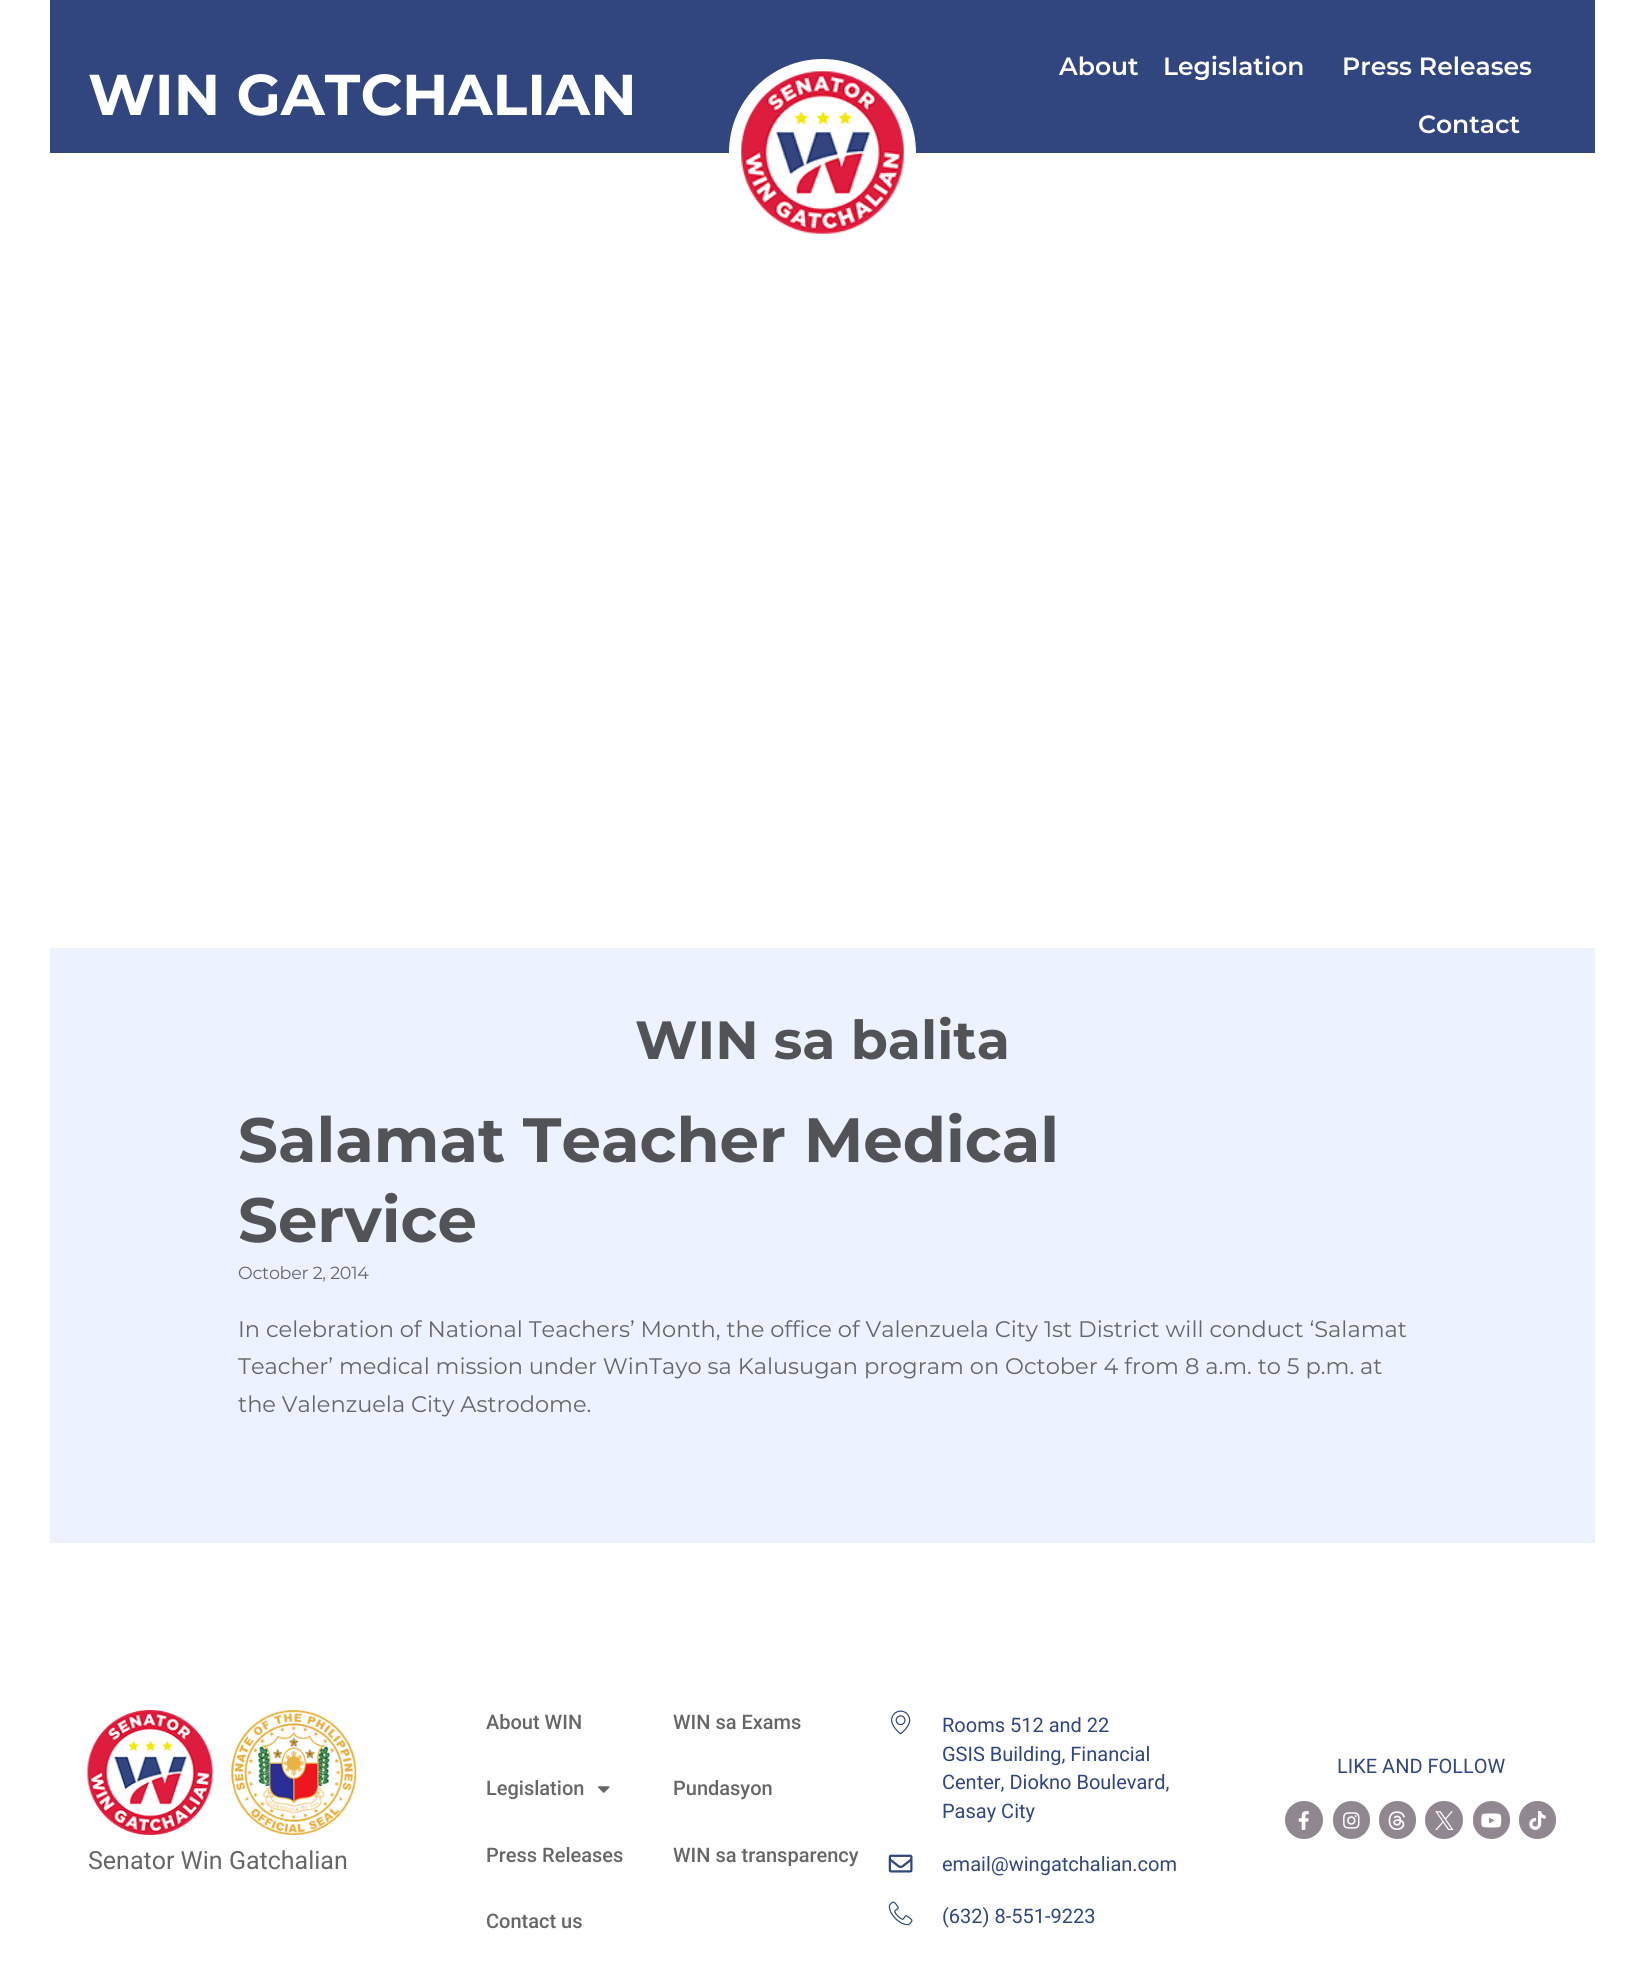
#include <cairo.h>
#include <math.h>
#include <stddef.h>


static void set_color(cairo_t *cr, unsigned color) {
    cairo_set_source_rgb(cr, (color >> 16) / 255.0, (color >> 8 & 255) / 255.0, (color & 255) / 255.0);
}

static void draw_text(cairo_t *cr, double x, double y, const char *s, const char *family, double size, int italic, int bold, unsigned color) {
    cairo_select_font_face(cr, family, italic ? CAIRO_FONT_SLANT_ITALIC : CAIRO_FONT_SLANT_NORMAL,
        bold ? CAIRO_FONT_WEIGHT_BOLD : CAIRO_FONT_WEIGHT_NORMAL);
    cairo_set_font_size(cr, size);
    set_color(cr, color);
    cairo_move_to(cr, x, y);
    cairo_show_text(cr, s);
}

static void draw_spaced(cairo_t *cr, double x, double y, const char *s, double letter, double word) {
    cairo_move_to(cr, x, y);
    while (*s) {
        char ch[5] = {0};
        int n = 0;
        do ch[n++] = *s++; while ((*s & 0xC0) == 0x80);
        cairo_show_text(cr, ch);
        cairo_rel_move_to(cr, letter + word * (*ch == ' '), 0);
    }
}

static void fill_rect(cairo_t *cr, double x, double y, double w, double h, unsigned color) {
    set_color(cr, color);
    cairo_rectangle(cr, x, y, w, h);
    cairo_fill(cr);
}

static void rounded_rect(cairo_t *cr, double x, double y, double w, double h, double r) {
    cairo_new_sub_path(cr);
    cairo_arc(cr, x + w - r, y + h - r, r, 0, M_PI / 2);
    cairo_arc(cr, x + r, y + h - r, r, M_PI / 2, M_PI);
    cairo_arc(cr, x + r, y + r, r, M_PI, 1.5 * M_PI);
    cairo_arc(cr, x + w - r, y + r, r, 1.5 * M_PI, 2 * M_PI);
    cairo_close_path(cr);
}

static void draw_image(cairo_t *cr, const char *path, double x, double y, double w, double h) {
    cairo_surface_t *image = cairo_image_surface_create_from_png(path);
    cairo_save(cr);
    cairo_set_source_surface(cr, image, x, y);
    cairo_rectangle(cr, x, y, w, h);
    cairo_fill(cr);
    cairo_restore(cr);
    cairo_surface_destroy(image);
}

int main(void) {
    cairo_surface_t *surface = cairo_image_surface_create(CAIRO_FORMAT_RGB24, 1645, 1978);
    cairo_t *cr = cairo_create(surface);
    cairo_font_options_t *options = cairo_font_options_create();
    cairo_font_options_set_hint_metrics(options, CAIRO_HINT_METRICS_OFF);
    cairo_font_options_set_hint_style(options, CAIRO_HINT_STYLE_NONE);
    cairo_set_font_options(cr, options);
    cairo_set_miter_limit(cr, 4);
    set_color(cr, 0xFFFFFF);
    cairo_paint(cr);
    fill_rect(cr, 50, 0, 1545, 153, 0x31457E);
    draw_text(cr, 88, 115, "WIN GATCHALIAN", "Montserrat", 57.5, 0, 1, 0xFFFFFF);
    cairo_new_path(cr);
    cairo_arc(cr, 822.5, 152.5, 87, 0, 2 * M_PI);
    cairo_set_line_width(cr, 13);
    cairo_stroke(cr);
    draw_image(cr, "assets/img1.png", 741, 71, 163, 163);
    draw_text(cr, 1059, 75, "About", "Montserrat SemiBold", 25, 0, 0, 0xFFFFFF);
    draw_text(cr, 1163, 75, "Legislation", "Montserrat SemiBold", 25, 0, 0, 0xFFFFFF);
    draw_text(cr, 1342, 75, "Press Releases", "Montserrat SemiBold", 25, 0, 0, 0xFFFFFF);
    draw_text(cr, 1418, 133, "Contact", "Montserrat SemiBold", 25, 0, 0, 0xFFFFFF);
    fill_rect(cr, 50, 948, 1545, 595, 0xECF2FE);
    draw_text(cr, 635, 1059, "WIN sa balita", "Montserrat", 53.75, 0, 1, 0x525356);
    draw_text(cr, 238, 1162, "Salamat Teacher Medical", "Montserrat", 62.5, 0, 1, 0x525356);
    draw_text(cr, 238, 1242, "Service", "Montserrat", 62.5, 0, 1, 0x525356);
    cairo_select_font_face(cr, "Montserrat", CAIRO_FONT_SLANT_NORMAL, CAIRO_FONT_WEIGHT_NORMAL);
    cairo_set_font_size(cr, 17.5);
    set_color(cr, 0x666666);
    draw_spaced(cr, 238, 1279, "October 2, 2014", -0.25, 0);
    draw_text(cr, 238, 1337, "In celebration of National Teachers’ Month, the office of Valenzuela City 1st District will conduct ‘Salamat", "Montserrat", 22.5, 0, 0, 0x666666);
    draw_text(cr, 238, 1374, "Teacher’ medical mission under WinTayo sa Kalusugan program on October 4 from 8 a.m. to 5 p.m. at", "Montserrat", 22.5, 0, 0, 0x666666);
    draw_text(cr, 238, 1412, "the Valenzuela City Astrodome.", "Montserrat", 22.5, 0, 0, 0x666666);
    draw_text(cr, 486, 1729, "About WIN", "Roboto Medium", 20, 0, 0, 0x666666);
    draw_text(cr, 673, 1729, "WIN sa Exams", "Roboto Medium", 20, 0, 0, 0x666666);
    draw_text(cr, 486, 1795, "Legislation", "Roboto Medium", 20, 0, 0, 0x666666);
    draw_image(cr, "assets/img2.png", 598, 1786, 12, 7);
    draw_text(cr, 673, 1795, "Pundasyon", "Roboto Medium", 20, 0, 0, 0x666666);
    draw_text(cr, 486, 1862, "Press Releases", "Roboto Medium", 20, 0, 0, 0x666666);
    draw_text(cr, 673, 1862, "WIN sa transparency", "Roboto Medium", 20, 0, 0, 0x666666);
    draw_text(cr, 486, 1928, "Contact us", "Roboto Medium", 20, 0, 0, 0x666666);
    draw_image(cr, "assets/img3.png", 891, 1710, 20, 25);
    draw_text(cr, 942, 1732, "Rooms 512 and 22", "Roboto", 20, 0, 0, 0x31457E);
    draw_text(cr, 942, 1761, "GSIS Building, Financial", "Roboto", 20, 0, 0, 0x31457E);
    draw_text(cr, 942, 1789, "Center, Diokno Boulevard,", "Roboto", 20, 0, 0, 0x31457E);
    draw_text(cr, 942, 1818, "Pasay City", "Roboto", 20, 0, 0, 0x31457E);
    draw_image(cr, "assets/img4.png", 888, 1854, 25, 19);
    draw_text(cr, 942, 1871, "email@wingatchalian.com", "Roboto", 20, 0, 0, 0x31457E);
    draw_image(cr, "assets/img5.png", 888, 1901, 25, 25);
    draw_text(cr, 942, 1923, "(632) 8-551-9223", "Roboto", 20, 0, 0, 0x31457E);
    draw_text(cr, 1337, 1773, "LIKE AND FOLLOW", "Roboto", 20, 0, 0, 0x31457E);
    set_color(cr, 0x918791);
    cairo_new_path(cr);
    cairo_arc(cr, 1304, 1820, 19, 0, 2 * M_PI);
    cairo_fill(cr);
    draw_image(cr, "assets/img6.png", 1298, 1811, 11, 19);
    rounded_rect(cr, 1333, 1801, 37, 38, 18.5);
    cairo_fill(cr);
    draw_image(cr, "assets/img7.png", 1343, 1812, 17, 17);
    rounded_rect(cr, 1379, 1801, 37, 38, 18.5);
    cairo_fill(cr);
    draw_image(cr, "assets/img8.png", 1388, 1811, 17, 19);
    cairo_arc(cr, 1444, 1820, 19, 0, 2 * M_PI);
    cairo_fill(cr);
    draw_image(cr, "assets/img9.png", 1435, 1811, 19, 19);
    rounded_rect(cr, 1473, 1801, 37, 38, 18.5);
    cairo_fill(cr);
    draw_image(cr, "assets/img10.png", 1481, 1813, 21, 15);
    rounded_rect(cr, 1519, 1801, 37, 38, 18.5);
    cairo_fill(cr);
    draw_image(cr, "assets/img11.png", 1529, 1811, 17, 19);
    draw_image(cr, "assets/img12.png", 87, 1710, 126, 125);
    draw_image(cr, "assets/img13.png", 231, 1710, 126, 125);
    draw_text(cr, 88, 1869, "Senator Win Gatchalian", "Roboto", 25, 0, 0, 0x666666);
    cairo_surface_write_to_png(surface, "output.png");
    cairo_font_options_destroy(options);
    cairo_destroy(cr);
    cairo_surface_destroy(surface);
    return 0;
}
